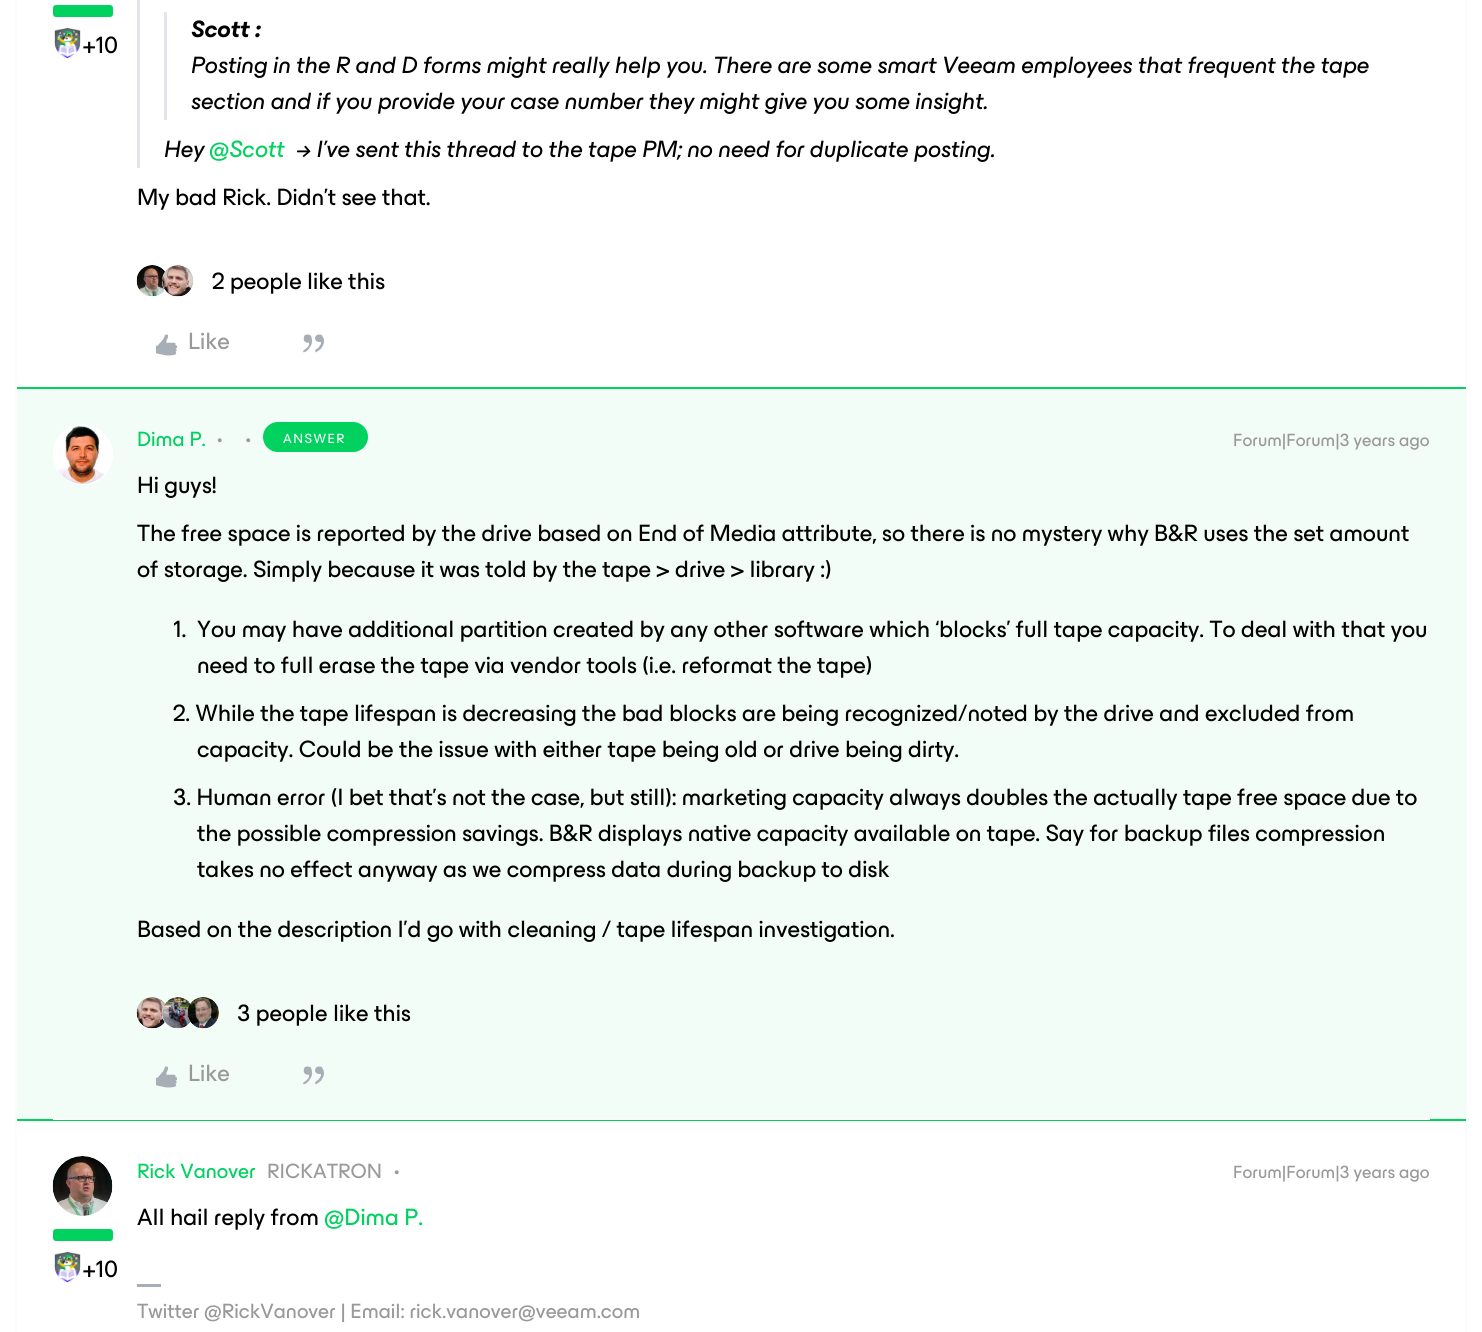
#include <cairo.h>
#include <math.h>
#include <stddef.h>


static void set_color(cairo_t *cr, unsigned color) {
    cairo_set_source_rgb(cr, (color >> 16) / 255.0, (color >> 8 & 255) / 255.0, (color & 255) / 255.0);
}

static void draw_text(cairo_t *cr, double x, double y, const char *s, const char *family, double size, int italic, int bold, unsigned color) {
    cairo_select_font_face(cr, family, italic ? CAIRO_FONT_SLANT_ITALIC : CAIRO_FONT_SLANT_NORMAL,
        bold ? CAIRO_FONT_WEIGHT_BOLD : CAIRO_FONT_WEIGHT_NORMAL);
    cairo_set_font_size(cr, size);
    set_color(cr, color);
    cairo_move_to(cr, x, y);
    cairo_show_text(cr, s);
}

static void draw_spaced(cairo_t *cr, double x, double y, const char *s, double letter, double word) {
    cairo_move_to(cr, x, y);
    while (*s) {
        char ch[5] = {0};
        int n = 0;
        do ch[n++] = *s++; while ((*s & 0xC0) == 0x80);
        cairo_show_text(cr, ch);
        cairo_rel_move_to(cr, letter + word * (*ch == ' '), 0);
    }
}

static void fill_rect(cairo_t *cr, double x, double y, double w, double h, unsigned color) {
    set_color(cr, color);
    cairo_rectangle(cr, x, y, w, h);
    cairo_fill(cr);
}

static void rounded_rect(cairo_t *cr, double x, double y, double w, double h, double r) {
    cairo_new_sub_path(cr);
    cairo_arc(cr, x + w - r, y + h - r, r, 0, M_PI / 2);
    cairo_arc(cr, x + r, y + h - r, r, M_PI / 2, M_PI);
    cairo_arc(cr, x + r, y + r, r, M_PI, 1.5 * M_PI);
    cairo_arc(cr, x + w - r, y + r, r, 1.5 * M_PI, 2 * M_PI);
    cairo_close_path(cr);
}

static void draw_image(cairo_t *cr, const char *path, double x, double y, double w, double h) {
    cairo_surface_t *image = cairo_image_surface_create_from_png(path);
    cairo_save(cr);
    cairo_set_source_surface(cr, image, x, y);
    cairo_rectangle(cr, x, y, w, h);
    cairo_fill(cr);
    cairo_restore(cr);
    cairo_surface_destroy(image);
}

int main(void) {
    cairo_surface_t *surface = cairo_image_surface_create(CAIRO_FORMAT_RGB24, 1482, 1332);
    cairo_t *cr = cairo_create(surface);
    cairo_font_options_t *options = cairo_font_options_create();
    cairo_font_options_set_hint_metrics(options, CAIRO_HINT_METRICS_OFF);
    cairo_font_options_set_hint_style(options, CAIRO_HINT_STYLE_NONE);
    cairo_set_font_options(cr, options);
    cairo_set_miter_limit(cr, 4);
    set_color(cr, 0xFFFFFF);
    cairo_paint(cr);
    cairo_rectangle(cr, 16, -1, 1450, 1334);
    set_color(cr, 0xFFFBFB);
    cairo_stroke(cr);
    set_color(cr, 0x00D15F);
    rounded_rect(cr, 53, 5, 60, 12, 3);
    cairo_fill(cr);
    draw_image(cr, "assets/img1.png", 54, 28, 27, 30);
    draw_text(cr, 83, 53, "+10", "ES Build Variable", 24, 0, 0, 0x000000);
    fill_rect(cr, 137, 0, 3, 168, 0xE3E4EC);
    fill_rect(cr, 164, 12, 3, 108, 0xE3E4EC);
    draw_text(cr, 191, 37, "Scott :", "ES Build Variable", 24, 1, 1, 0x000000);
    draw_text(cr, 191, 73, "Posting in the R and D forms might really help you. There are some smart Veeam employees that frequent the tape", "ES Build Variable", 24, 1, 0, 0x000000);
    draw_text(cr, 191, 109, "section and if you provide your case number they might give you some insight.", "ES Build Variable", 24, 1, 0, 0x000000);
    draw_text(cr, 164, 157, "Hey", "ES Build Variable", 24, 1, 0, 0x000000);
    draw_text(cr, 209, 157, "@Scott", "ES Build Variable", 24, 1, 0, 0x00D15F);
    draw_text(cr, 296, 157, "→ I’ve sent this thread to the tape PM; no need for duplicate posting.", "ES Build Variable", 24, 1, 0, 0x000000);
    draw_text(cr, 137, 205, "My bad Rick. Didn’t see that.", "ES Build Variable", 24, 0, 0, 0x000000);
    draw_image(cr, "assets/img2.png", 136, 265, 29, 32);
    set_color(cr, 0xFFFFFF);
    rounded_rect(cr, 162, 266, 32, 31, 15.5);
    cairo_fill(cr);
    draw_image(cr, "assets/img3.png", 162, 265, 32, 32);
    draw_text(cr, 212, 289, "2 people like this", "ES Build Variable", 24, 0, 0, 0x000000);
    draw_image(cr, "assets/img4.png", 156, 334, 21, 22);
    draw_text(cr, 188, 349, "Like", "ES Build Variable", 24, 0, 0, 0x999999);
    draw_image(cr, "assets/img5.png", 303, 334, 21, 19);
    fill_rect(cr, 53, 386, 1377, 1, 0xFFFBFB);
    cairo_set_source_rgba(cr, 0, 0.82, 0.373, 0.05);
    cairo_rectangle(cr, 17, 389, 1449, 730);
    cairo_fill(cr);
    fill_rect(cr, 17, 387, 1449, 2, 0x00D15F);
    fill_rect(cr, 17, 1119, 1449, 2, 0x00D15F);
    set_color(cr, 0xFFFFFF);
    cairo_arc(cr, 83, 455, 30, 0, 2 * M_PI);
    cairo_fill(cr);
    draw_image(cr, "assets/img6.png", 53, 424, 51, 60);
    draw_text(cr, 137, 446, "Dima P.", "ES Build Variable", 21, 0, 0, 0x00D15F);
    draw_image(cr, "assets/img7.png", 217, 438, 5, 5);
    draw_image(cr, "assets/img8.png", 246, 438, 5, 5);
    rounded_rect(cr, 263, 422, 105, 30, 15);
    cairo_fill(cr);
    cairo_set_font_size(cr, 13.5);
    set_color(cr, 0xFFFFFF);
    draw_spaced(cr, 283, 443, "ANSWER", 1.5, 0);
    draw_text(cr, 1233, 446, "Forum|Forum|3 years ago", "ES Build Variable", 18, 0, 0, 0x999999);
    draw_text(cr, 137, 493, "Hi guys!", "ES Build Variable", 24, 0, 0, 0x000000);
    draw_text(cr, 137, 541, "The free space is reported by the drive based on End of Media attribute, so there is no mystery why B&R uses the set amount", "ES Build Variable", 24, 0, 0, 0x000000);
    draw_text(cr, 137, 577, "of storage. Simply because it was told by the tape > drive > library :)", "ES Build Variable", 24, 0, 0, 0x000000);
    draw_text(cr, 173, 637, "1.", "ES Build Variable", 24, 0, 0, 0x000000);
    draw_text(cr, 197, 637, "You may have additional partition created by any other software which ‘blocks’ full tape capacity. To deal with that you", "ES Build Variable", 24, 0, 0, 0x000000);
    draw_text(cr, 197, 673, "need to full erase the tape via vendor tools (i.e. reformat the tape)", "ES Build Variable", 24, 0, 0, 0x000000);
    draw_text(cr, 173, 721, "2. While the tape lifespan is decreasing the bad blocks are being recognized/noted by the drive and excluded from", "ES Build Variable", 24, 0, 0, 0x000000);
    draw_text(cr, 197, 757, "capacity. Could be the issue with either tape being old or drive being dirty.", "ES Build Variable", 24, 0, 0, 0x000000);
    draw_text(cr, 173, 805, "3. Human error (I bet that’s not the case, but still): marketing capacity always doubles the actually tape free space due to", "ES Build Variable", 24, 0, 0, 0x000000);
    draw_text(cr, 197, 841, "the possible compression savings. B&R displays native capacity available on tape. Say for backup files compression", "ES Build Variable", 24, 0, 0, 0x000000);
    draw_text(cr, 197, 877, "takes no effect anyway as we compress data during backup to disk", "ES Build Variable", 24, 0, 0, 0x000000);
    draw_text(cr, 137, 937, "Based on the description I’d go with cleaning / tape lifespan investigation.", "ES Build Variable", 24, 0, 0, 0x000000);
    set_color(cr, 0xFFFFFF);
    cairo_new_path(cr);
    cairo_arc(cr, 152.5, 1013.5, 15.5, 0, 2 * M_PI);
    cairo_fill(cr);
    draw_image(cr, "assets/img9.png", 136, 997, 29, 32);
    rounded_rect(cr, 162, 998, 32, 31, 15.5);
    cairo_fill(cr);
    draw_image(cr, "assets/img10.png", 162, 997, 29, 32);
    cairo_arc(cr, 203.5, 1013.5, 15.5, 0, 2 * M_PI);
    cairo_fill(cr);
    draw_image(cr, "assets/img11.png", 187, 997, 32, 32);
    draw_text(cr, 237, 1021, "3 people like this", "ES Build Variable", 24, 0, 0, 0x000000);
    draw_image(cr, "assets/img12.png", 156, 1066, 21, 22);
    draw_text(cr, 188, 1081, "Like", "ES Build Variable", 24, 0, 0, 0x999999);
    draw_image(cr, "assets/img13.png", 303, 1066, 21, 19);
    fill_rect(cr, 53, 1118, 1377, 2, 0xFFFBFB);
    draw_text(cr, 137, 1178, "Rick Vanover", "ES Build Variable", 21, 0, 0, 0x00D15F);
    draw_text(cr, 267, 1178, "RICKATRON", "ES Build Variable", 21, 0, 0, 0x999999);
    draw_image(cr, "assets/img14.png", 394, 1170, 5, 5);
    draw_text(cr, 1233, 1178, "Forum|Forum|3 years ago", "ES Build Variable", 18, 0, 0, 0x999999);
    draw_text(cr, 137, 1225, "All hail reply from", "ES Build Variable", 24, 0, 0, 0x000000);
    draw_text(cr, 324, 1225, "@Dima P.", "ES Build Variable", 24, 0, 0, 0x00D15F);
    draw_image(cr, "assets/img15.png", 52, 1156, 61, 60);
    rounded_rect(cr, 53, 1229, 60, 12, 3);
    cairo_fill(cr);
    draw_image(cr, "assets/img16.png", 54, 1252, 27, 30);
    draw_text(cr, 83, 1277, "+10", "ES Build Variable", 24, 0, 0, 0x000000);
    fill_rect(cr, 137, 1284, 24, 3, 0xA7AEB5);
    draw_text(cr, 137, 1318, "Twitter @RickVanover | Email: rick.vanover@veeam.com", "ES Build Variable", 21, 0, 0, 0x999999);
    cairo_surface_write_to_png(surface, "output.png");
    cairo_font_options_destroy(options);
    cairo_destroy(cr);
    cairo_surface_destroy(surface);
    return 0;
}
